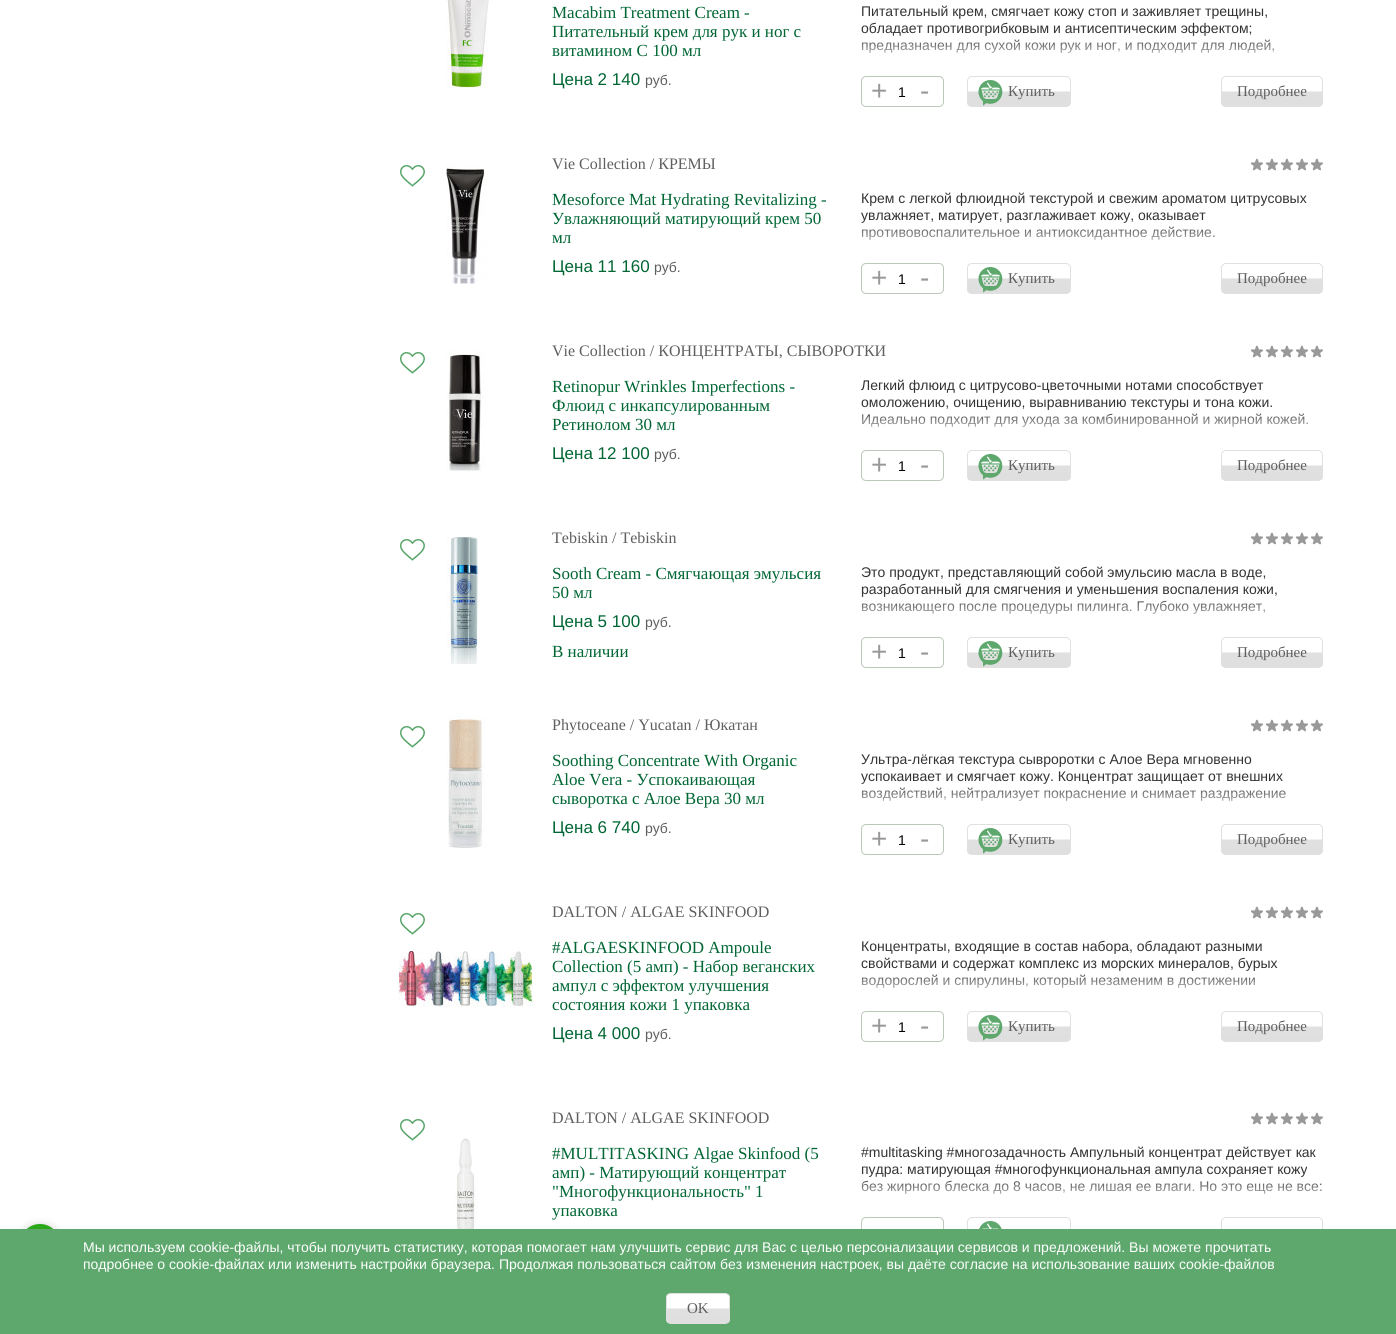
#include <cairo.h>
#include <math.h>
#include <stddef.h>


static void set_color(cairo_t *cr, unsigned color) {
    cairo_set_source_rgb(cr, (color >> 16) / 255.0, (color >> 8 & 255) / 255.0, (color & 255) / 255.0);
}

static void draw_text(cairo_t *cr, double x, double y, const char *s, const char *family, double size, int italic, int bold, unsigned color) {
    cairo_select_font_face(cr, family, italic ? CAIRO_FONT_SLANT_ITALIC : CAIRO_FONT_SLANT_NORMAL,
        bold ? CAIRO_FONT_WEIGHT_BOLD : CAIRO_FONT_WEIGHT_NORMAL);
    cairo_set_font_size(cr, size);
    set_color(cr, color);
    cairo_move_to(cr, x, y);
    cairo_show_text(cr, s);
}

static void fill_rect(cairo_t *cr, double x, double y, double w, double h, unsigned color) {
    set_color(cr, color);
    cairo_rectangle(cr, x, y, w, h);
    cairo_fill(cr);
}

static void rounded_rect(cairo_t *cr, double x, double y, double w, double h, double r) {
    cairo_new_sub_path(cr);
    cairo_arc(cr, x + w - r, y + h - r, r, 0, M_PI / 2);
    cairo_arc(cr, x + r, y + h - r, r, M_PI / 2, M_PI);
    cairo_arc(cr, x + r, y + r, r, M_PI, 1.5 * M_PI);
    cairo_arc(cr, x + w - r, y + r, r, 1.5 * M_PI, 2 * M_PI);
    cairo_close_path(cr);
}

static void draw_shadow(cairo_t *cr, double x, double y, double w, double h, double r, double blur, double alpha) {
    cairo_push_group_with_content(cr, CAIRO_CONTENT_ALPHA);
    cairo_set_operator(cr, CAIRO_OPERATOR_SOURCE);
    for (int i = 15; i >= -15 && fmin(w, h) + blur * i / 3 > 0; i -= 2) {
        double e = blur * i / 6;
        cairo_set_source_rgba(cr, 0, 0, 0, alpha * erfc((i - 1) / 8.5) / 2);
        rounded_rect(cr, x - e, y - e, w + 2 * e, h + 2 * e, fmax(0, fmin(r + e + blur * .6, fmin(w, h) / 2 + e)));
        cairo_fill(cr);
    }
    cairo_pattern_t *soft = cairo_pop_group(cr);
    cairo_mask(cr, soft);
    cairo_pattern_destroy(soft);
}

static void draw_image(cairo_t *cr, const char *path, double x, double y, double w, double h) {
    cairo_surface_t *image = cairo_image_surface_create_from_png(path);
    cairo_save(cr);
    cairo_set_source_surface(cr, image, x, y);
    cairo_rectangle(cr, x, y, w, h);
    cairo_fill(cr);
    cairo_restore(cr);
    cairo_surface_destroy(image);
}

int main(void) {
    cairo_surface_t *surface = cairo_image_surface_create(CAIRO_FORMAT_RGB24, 1396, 1334);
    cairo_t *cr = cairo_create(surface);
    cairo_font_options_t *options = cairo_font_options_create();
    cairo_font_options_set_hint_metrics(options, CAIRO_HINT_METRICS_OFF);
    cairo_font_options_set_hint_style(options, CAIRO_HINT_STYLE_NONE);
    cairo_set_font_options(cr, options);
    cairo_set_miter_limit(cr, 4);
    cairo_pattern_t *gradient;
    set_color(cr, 0xFFFFFF);
    cairo_paint(cr);
    draw_image(cr, "assets/img1.png", 446, 0, 43, 88);
    draw_text(cr, 552, 18, "Macabim Treatment Cream -", "Liberation Serif", 17, 0, 0, 0x006633);
    draw_text(cr, 552, 37, "Питательный крем для рук и ног с", "Liberation Serif", 17, 0, 0, 0x006633);
    draw_text(cr, 552, 56, "витамином С 100 мл", "Liberation Serif", 17, 0, 0, 0x006633);
    draw_text(cr, 552, 85, "Цена 2 140", "Liberation Sans", 17, 0, 0, 0x006633);
    draw_text(cr, 645, 85, "руб.", "Liberation Sans", 14, 0, 0, 0x5F5F5F);
    draw_text(cr, 861, 16, "Питательный крем, смягчает кожу стоп и заживляет трещины,", "Liberation Sans", 14, 0, 0, 0x333333);
    draw_text(cr, 861, 33, "обладает противогрибковым и антисептическим эффектом;", "Liberation Sans", 14, 0, 0, 0x333333);
    draw_text(cr, 861, 50, "предназначен для сухой кожи рук и ног, и подходит для людей,", "Liberation Sans", 14, 0, 0, 0x333333);
    draw_image(cr, "assets/img2.png", 861, 33, 433, 33);
    rounded_rect(cr, 861.5, 76.5, 82, 30, 4.5);
    set_color(cr, 0xBCC8BA);
    cairo_set_line_width(cr, 1);
    cairo_stroke(cr);
    draw_text(cr, 871, 100, "+", "Liberation Sans", 28, 0, 0, 0x999999);
    draw_text(cr, 898, 97, "1", "Liberation Sans", 14, 0, 0, 0x000000);
    draw_text(cr, 920, 100, "-", "Liberation Sans", 28, 0, 0, 0x999999);
    cairo_save(cr);
    rounded_rect(cr, 967, 76, 104, 31, 5);
    cairo_clip(cr);
    gradient = cairo_pattern_create_linear(1019, 77, 1019, 106);
    cairo_pattern_add_color_stop_rgba(gradient, 0, 1, 1, 1, 1);
    cairo_pattern_add_color_stop_rgba(gradient, 0.47, 1, 1, 1, 1);
    cairo_pattern_add_color_stop_rgba(gradient, 0.49, 0.957, 0.957, 0.957, 1);
    cairo_pattern_add_color_stop_rgba(gradient, 0.53, 0.878, 0.878, 0.878, 1);
    cairo_pattern_add_color_stop_rgba(gradient, 1, 0.875, 0.875, 0.875, 1);
    cairo_set_source(cr, gradient);
    cairo_pattern_destroy(gradient);
    cairo_rectangle(cr, 967, 77, 104, 29);
    cairo_fill(cr);
    cairo_restore(cr);
    rounded_rect(cr, 967.5, 76.5, 103, 30, 4.5);
    set_color(cr, 0xE0E0E0);
    cairo_stroke(cr);
    draw_image(cr, "assets/img3.png", 978, 80, 25, 26);
    draw_text(cr, 1008, 96, "Купить", "Liberation Serif", 15, 0, 0, 0x5F5F5F);
    cairo_save(cr);
    rounded_rect(cr, 1221, 76, 102, 31, 5);
    cairo_clip(cr);
    gradient = cairo_pattern_create_linear(1272, 77, 1272, 106);
    cairo_pattern_add_color_stop_rgba(gradient, 0, 1, 1, 1, 1);
    cairo_pattern_add_color_stop_rgba(gradient, 0.47, 1, 1, 1, 1);
    cairo_pattern_add_color_stop_rgba(gradient, 0.49, 0.957, 0.957, 0.957, 1);
    cairo_pattern_add_color_stop_rgba(gradient, 0.53, 0.878, 0.878, 0.878, 1);
    cairo_pattern_add_color_stop_rgba(gradient, 1, 0.875, 0.875, 0.875, 1);
    cairo_set_source(cr, gradient);
    cairo_pattern_destroy(gradient);
    cairo_rectangle(cr, 1221, 77, 102, 29);
    cairo_fill(cr);
    cairo_restore(cr);
    rounded_rect(cr, 1221.5, 76.5, 101, 30, 4.5);
    set_color(cr, 0xE0E0E0);
    cairo_stroke(cr);
    draw_text(cr, 1237, 96, "Подробнее", "Liberation Serif", 15, 0, 0, 0x5F5F5F);
    draw_image(cr, "assets/img4.png", 400, 165, 25, 22);
    draw_image(cr, "assets/img5.png", 446, 164, 40, 120);
    draw_text(cr, 552, 169, "Vie Collection / КРЕМЫ", "Liberation Serif", 16, 0, 0, 0x5F5F5F);
    draw_text(cr, 552, 205, "Mesoforce Mat Hydrating Revitalizing -", "Liberation Serif", 17, 0, 0, 0x006633);
    draw_text(cr, 552, 224, "Увлажняющий матирующий крем 50", "Liberation Serif", 17, 0, 0, 0x006633);
    draw_text(cr, 552, 243, "мл", "Liberation Serif", 17, 0, 0, 0x006633);
    draw_text(cr, 552, 272, "Цена 11 160", "Liberation Sans", 17, 0, 0, 0x006633);
    draw_text(cr, 654, 272, "руб.", "Liberation Sans", 14, 0, 0, 0x5F5F5F);
    draw_image(cr, "assets/img6.png", 1251, 158, 72, 13);
    draw_text(cr, 861, 203, "Крем с легкой флюидной текстурой и свежим ароматом цитрусовых", "Liberation Sans", 14, 0, 0, 0x333333);
    draw_text(cr, 861, 220, "увлажняет, матирует, разглаживает кожу, оказывает", "Liberation Sans", 14, 0, 0, 0x333333);
    draw_text(cr, 861, 237, "противовоспалительное и антиоксидантное действие.", "Liberation Sans", 14, 0, 0, 0x333333);
    draw_image(cr, "assets/img7.png", 861, 220, 353, 33);
    rounded_rect(cr, 861.5, 263.5, 82, 30, 4.5);
    set_color(cr, 0xBCC8BA);
    cairo_stroke(cr);
    draw_text(cr, 871, 287, "+", "Liberation Sans", 28, 0, 0, 0x999999);
    draw_text(cr, 898, 284, "1", "Liberation Sans", 14, 0, 0, 0x000000);
    draw_text(cr, 920, 287, "-", "Liberation Sans", 28, 0, 0, 0x999999);
    cairo_save(cr);
    rounded_rect(cr, 967, 263, 104, 31, 5);
    cairo_clip(cr);
    gradient = cairo_pattern_create_linear(1019, 264, 1019, 293);
    cairo_pattern_add_color_stop_rgba(gradient, 0, 1, 1, 1, 1);
    cairo_pattern_add_color_stop_rgba(gradient, 0.47, 1, 1, 1, 1);
    cairo_pattern_add_color_stop_rgba(gradient, 0.49, 0.957, 0.957, 0.957, 1);
    cairo_pattern_add_color_stop_rgba(gradient, 0.53, 0.878, 0.878, 0.878, 1);
    cairo_pattern_add_color_stop_rgba(gradient, 1, 0.875, 0.875, 0.875, 1);
    cairo_set_source(cr, gradient);
    cairo_pattern_destroy(gradient);
    cairo_rectangle(cr, 967, 264, 104, 29);
    cairo_fill(cr);
    cairo_restore(cr);
    rounded_rect(cr, 967.5, 263.5, 103, 30, 4.5);
    set_color(cr, 0xE0E0E0);
    cairo_stroke(cr);
    draw_image(cr, "assets/img3.png", 978, 267, 25, 26);
    draw_text(cr, 1008, 283, "Купить", "Liberation Serif", 15, 0, 0, 0x5F5F5F);
    cairo_save(cr);
    rounded_rect(cr, 1221, 263, 102, 31, 5);
    cairo_clip(cr);
    gradient = cairo_pattern_create_linear(1272, 264, 1272, 293);
    cairo_pattern_add_color_stop_rgba(gradient, 0, 1, 1, 1, 1);
    cairo_pattern_add_color_stop_rgba(gradient, 0.47, 1, 1, 1, 1);
    cairo_pattern_add_color_stop_rgba(gradient, 0.49, 0.957, 0.957, 0.957, 1);
    cairo_pattern_add_color_stop_rgba(gradient, 0.53, 0.878, 0.878, 0.878, 1);
    cairo_pattern_add_color_stop_rgba(gradient, 1, 0.875, 0.875, 0.875, 1);
    cairo_set_source(cr, gradient);
    cairo_pattern_destroy(gradient);
    cairo_rectangle(cr, 1221, 264, 102, 29);
    cairo_fill(cr);
    cairo_restore(cr);
    rounded_rect(cr, 1221.5, 263.5, 101, 30, 4.5);
    set_color(cr, 0xE0E0E0);
    cairo_stroke(cr);
    draw_text(cr, 1237, 283, "Подробнее", "Liberation Serif", 15, 0, 0, 0x5F5F5F);
    draw_image(cr, "assets/img4.png", 400, 352, 25, 22);
    draw_image(cr, "assets/img8.png", 446, 351, 40, 120);
    draw_text(cr, 552, 356, "Vie Collection / КОНЦЕНТРАТЫ, СЫВОРОТКИ", "Liberation Serif", 16, 0, 0, 0x5F5F5F);
    draw_text(cr, 552, 392, "Retinopur Wrinkles Imperfections -", "Liberation Serif", 17, 0, 0, 0x006633);
    draw_text(cr, 552, 411, "Флюид с инкапсулированным", "Liberation Serif", 17, 0, 0, 0x006633);
    draw_text(cr, 552, 430, "Ретинолом 30 мл", "Liberation Serif", 17, 0, 0, 0x006633);
    draw_text(cr, 552, 459, "Цена 12 100", "Liberation Sans", 17, 0, 0, 0x006633);
    draw_text(cr, 654, 459, "руб.", "Liberation Sans", 14, 0, 0, 0x5F5F5F);
    draw_image(cr, "assets/img6.png", 1251, 345, 72, 13);
    draw_text(cr, 861, 390, "Легкий флюид с цитрусово-цветочными нотами способствует", "Liberation Sans", 14, 0, 0, 0x333333);
    draw_text(cr, 861, 407, "омоложению, очищению, выравниванию текстуры и тона кожи.", "Liberation Sans", 14, 0, 0, 0x333333);
    draw_text(cr, 861, 424, "Идеально подходит для ухода за комбинированной и жирной кожей.", "Liberation Sans", 14, 0, 0, 0x333333);
    draw_image(cr, "assets/img9.png", 861, 407, 447, 33);
    rounded_rect(cr, 861.5, 450.5, 82, 30, 4.5);
    set_color(cr, 0xBCC8BA);
    cairo_stroke(cr);
    draw_text(cr, 871, 474, "+", "Liberation Sans", 28, 0, 0, 0x999999);
    draw_text(cr, 898, 471, "1", "Liberation Sans", 14, 0, 0, 0x000000);
    draw_text(cr, 920, 474, "-", "Liberation Sans", 28, 0, 0, 0x999999);
    cairo_save(cr);
    rounded_rect(cr, 967, 450, 104, 31, 5);
    cairo_clip(cr);
    gradient = cairo_pattern_create_linear(1019, 451, 1019, 480);
    cairo_pattern_add_color_stop_rgba(gradient, 0, 1, 1, 1, 1);
    cairo_pattern_add_color_stop_rgba(gradient, 0.47, 1, 1, 1, 1);
    cairo_pattern_add_color_stop_rgba(gradient, 0.49, 0.957, 0.957, 0.957, 1);
    cairo_pattern_add_color_stop_rgba(gradient, 0.53, 0.878, 0.878, 0.878, 1);
    cairo_pattern_add_color_stop_rgba(gradient, 1, 0.875, 0.875, 0.875, 1);
    cairo_set_source(cr, gradient);
    cairo_pattern_destroy(gradient);
    cairo_rectangle(cr, 967, 451, 104, 29);
    cairo_fill(cr);
    cairo_restore(cr);
    rounded_rect(cr, 967.5, 450.5, 103, 30, 4.5);
    set_color(cr, 0xE0E0E0);
    cairo_stroke(cr);
    draw_image(cr, "assets/img3.png", 978, 454, 25, 26);
    draw_text(cr, 1008, 470, "Купить", "Liberation Serif", 15, 0, 0, 0x5F5F5F);
    cairo_save(cr);
    rounded_rect(cr, 1221, 450, 102, 31, 5);
    cairo_clip(cr);
    gradient = cairo_pattern_create_linear(1272, 451, 1272, 480);
    cairo_pattern_add_color_stop_rgba(gradient, 0, 1, 1, 1, 1);
    cairo_pattern_add_color_stop_rgba(gradient, 0.47, 1, 1, 1, 1);
    cairo_pattern_add_color_stop_rgba(gradient, 0.49, 0.957, 0.957, 0.957, 1);
    cairo_pattern_add_color_stop_rgba(gradient, 0.53, 0.878, 0.878, 0.878, 1);
    cairo_pattern_add_color_stop_rgba(gradient, 1, 0.875, 0.875, 0.875, 1);
    cairo_set_source(cr, gradient);
    cairo_pattern_destroy(gradient);
    cairo_rectangle(cr, 1221, 451, 102, 29);
    cairo_fill(cr);
    cairo_restore(cr);
    rounded_rect(cr, 1221.5, 450.5, 101, 30, 4.5);
    set_color(cr, 0xE0E0E0);
    cairo_stroke(cr);
    draw_text(cr, 1237, 470, "Подробнее", "Liberation Serif", 15, 0, 0, 0x5F5F5F);
    draw_image(cr, "assets/img4.png", 400, 539, 25, 22);
    draw_image(cr, "assets/img10.png", 446, 537, 32, 127);
    draw_text(cr, 552, 543, "Tebiskin / Tebiskin", "Liberation Serif", 16, 0, 0, 0x5F5F5F);
    draw_text(cr, 552, 579, "Sooth Cream - Смягчающая эмульсия", "Liberation Serif", 17, 0, 0, 0x006633);
    draw_text(cr, 552, 598, "50 мл", "Liberation Serif", 17, 0, 0, 0x006633);
    draw_text(cr, 552, 627, "Цена 5 100", "Liberation Sans", 17, 0, 0, 0x006633);
    draw_text(cr, 645, 627, "руб.", "Liberation Sans", 14, 0, 0, 0x5F5F5F);
    draw_text(cr, 552, 657, "В наличии", "Liberation Serif", 17, 0, 0, 0x006633);
    draw_image(cr, "assets/img6.png", 1251, 532, 72, 13);
    draw_text(cr, 861, 577, "Это продукт, представляющий собой эмульсию масла в воде,", "Liberation Sans", 14, 0, 0, 0x333333);
    draw_text(cr, 861, 594, "разработанный для смягчения и уменьшения воспаления кожи,", "Liberation Sans", 14, 0, 0, 0x333333);
    draw_text(cr, 861, 611, "возникающего после процедуры пилинга. Глубоко увлажняет,", "Liberation Sans", 14, 0, 0, 0x333333);
    draw_image(cr, "assets/img11.png", 861, 594, 415, 33);
    rounded_rect(cr, 861.5, 637.5, 82, 30, 4.5);
    set_color(cr, 0xBCC8BA);
    cairo_stroke(cr);
    draw_text(cr, 871, 661, "+", "Liberation Sans", 28, 0, 0, 0x999999);
    draw_text(cr, 898, 658, "1", "Liberation Sans", 14, 0, 0, 0x000000);
    draw_text(cr, 920, 661, "-", "Liberation Sans", 28, 0, 0, 0x999999);
    cairo_save(cr);
    rounded_rect(cr, 967, 637, 104, 31, 5);
    cairo_clip(cr);
    gradient = cairo_pattern_create_linear(1019, 638, 1019, 667);
    cairo_pattern_add_color_stop_rgba(gradient, 0, 1, 1, 1, 1);
    cairo_pattern_add_color_stop_rgba(gradient, 0.47, 1, 1, 1, 1);
    cairo_pattern_add_color_stop_rgba(gradient, 0.49, 0.957, 0.957, 0.957, 1);
    cairo_pattern_add_color_stop_rgba(gradient, 0.53, 0.878, 0.878, 0.878, 1);
    cairo_pattern_add_color_stop_rgba(gradient, 1, 0.875, 0.875, 0.875, 1);
    cairo_set_source(cr, gradient);
    cairo_pattern_destroy(gradient);
    cairo_rectangle(cr, 967, 638, 104, 29);
    cairo_fill(cr);
    cairo_restore(cr);
    rounded_rect(cr, 967.5, 637.5, 103, 30, 4.5);
    set_color(cr, 0xE0E0E0);
    cairo_stroke(cr);
    draw_image(cr, "assets/img3.png", 978, 641, 25, 26);
    draw_text(cr, 1008, 657, "Купить", "Liberation Serif", 15, 0, 0, 0x5F5F5F);
    cairo_save(cr);
    rounded_rect(cr, 1221, 637, 102, 31, 5);
    cairo_clip(cr);
    gradient = cairo_pattern_create_linear(1272, 638, 1272, 667);
    cairo_pattern_add_color_stop_rgba(gradient, 0, 1, 1, 1, 1);
    cairo_pattern_add_color_stop_rgba(gradient, 0.47, 1, 1, 1, 1);
    cairo_pattern_add_color_stop_rgba(gradient, 0.49, 0.957, 0.957, 0.957, 1);
    cairo_pattern_add_color_stop_rgba(gradient, 0.53, 0.878, 0.878, 0.878, 1);
    cairo_pattern_add_color_stop_rgba(gradient, 1, 0.875, 0.875, 0.875, 1);
    cairo_set_source(cr, gradient);
    cairo_pattern_destroy(gradient);
    cairo_rectangle(cr, 1221, 638, 102, 29);
    cairo_fill(cr);
    cairo_restore(cr);
    rounded_rect(cr, 1221.5, 637.5, 101, 30, 4.5);
    set_color(cr, 0xE0E0E0);
    cairo_stroke(cr);
    draw_text(cr, 1237, 657, "Подробнее", "Liberation Serif", 15, 0, 0, 0x5F5F5F);
    draw_image(cr, "assets/img4.png", 400, 726, 25, 22);
    draw_image(cr, "assets/img12.png", 446, 716, 40, 132);
    draw_text(cr, 552, 730, "Phytoceane / Yucatan / Юкатан", "Liberation Serif", 16, 0, 0, 0x5F5F5F);
    draw_text(cr, 552, 766, "Soothing Concentrate With Organic", "Liberation Serif", 17, 0, 0, 0x006633);
    draw_text(cr, 552, 785, "Aloe Vera - Успокаивающая", "Liberation Serif", 17, 0, 0, 0x006633);
    draw_text(cr, 552, 804, "сыворотка с Алое Вера 30 мл", "Liberation Serif", 17, 0, 0, 0x006633);
    draw_text(cr, 552, 833, "Цена 6 740", "Liberation Sans", 17, 0, 0, 0x006633);
    draw_text(cr, 645, 833, "руб.", "Liberation Sans", 14, 0, 0, 0x5F5F5F);
    draw_image(cr, "assets/img6.png", 1251, 719, 72, 13);
    draw_text(cr, 861, 764, "Ультра-лёгкая текстура сывроротки с Алое Вера мгновенно", "Liberation Sans", 14, 0, 0, 0x333333);
    draw_text(cr, 861, 781, "успокаивает и смягчает кожу. Концентрат защищает от внешних", "Liberation Sans", 14, 0, 0, 0x333333);
    draw_text(cr, 861, 798, "воздействий, нейтрализует покраснение и снимает раздражение", "Liberation Sans", 14, 0, 0, 0x333333);
    draw_image(cr, "assets/img13.png", 861, 781, 425, 33);
    rounded_rect(cr, 861.5, 824.5, 82, 30, 4.5);
    set_color(cr, 0xBCC8BA);
    cairo_stroke(cr);
    draw_text(cr, 871, 848, "+", "Liberation Sans", 28, 0, 0, 0x999999);
    draw_text(cr, 898, 845, "1", "Liberation Sans", 14, 0, 0, 0x000000);
    draw_text(cr, 920, 848, "-", "Liberation Sans", 28, 0, 0, 0x999999);
    cairo_save(cr);
    rounded_rect(cr, 967, 824, 104, 31, 5);
    cairo_clip(cr);
    gradient = cairo_pattern_create_linear(1019, 825, 1019, 854);
    cairo_pattern_add_color_stop_rgba(gradient, 0, 1, 1, 1, 1);
    cairo_pattern_add_color_stop_rgba(gradient, 0.47, 1, 1, 1, 1);
    cairo_pattern_add_color_stop_rgba(gradient, 0.49, 0.957, 0.957, 0.957, 1);
    cairo_pattern_add_color_stop_rgba(gradient, 0.53, 0.878, 0.878, 0.878, 1);
    cairo_pattern_add_color_stop_rgba(gradient, 1, 0.875, 0.875, 0.875, 1);
    cairo_set_source(cr, gradient);
    cairo_pattern_destroy(gradient);
    cairo_rectangle(cr, 967, 825, 104, 29);
    cairo_fill(cr);
    cairo_restore(cr);
    rounded_rect(cr, 967.5, 824.5, 103, 30, 4.5);
    set_color(cr, 0xE0E0E0);
    cairo_stroke(cr);
    draw_image(cr, "assets/img3.png", 978, 828, 25, 26);
    draw_text(cr, 1008, 844, "Купить", "Liberation Serif", 15, 0, 0, 0x5F5F5F);
    cairo_save(cr);
    rounded_rect(cr, 1221, 824, 102, 31, 5);
    cairo_clip(cr);
    gradient = cairo_pattern_create_linear(1272, 825, 1272, 854);
    cairo_pattern_add_color_stop_rgba(gradient, 0, 1, 1, 1, 1);
    cairo_pattern_add_color_stop_rgba(gradient, 0.47, 1, 1, 1, 1);
    cairo_pattern_add_color_stop_rgba(gradient, 0.49, 0.957, 0.957, 0.957, 1);
    cairo_pattern_add_color_stop_rgba(gradient, 0.53, 0.878, 0.878, 0.878, 1);
    cairo_pattern_add_color_stop_rgba(gradient, 1, 0.875, 0.875, 0.875, 1);
    cairo_set_source(cr, gradient);
    cairo_pattern_destroy(gradient);
    cairo_rectangle(cr, 1221, 825, 102, 29);
    cairo_fill(cr);
    cairo_restore(cr);
    rounded_rect(cr, 1221.5, 824.5, 101, 30, 4.5);
    set_color(cr, 0xE0E0E0);
    cairo_stroke(cr);
    draw_text(cr, 1237, 844, "Подробнее", "Liberation Serif", 15, 0, 0, 0x5F5F5F);
    draw_image(cr, "assets/img4.png", 400, 913, 25, 22);
    draw_image(cr, "assets/img14.png", 398, 951, 135, 56);
    draw_text(cr, 552, 917, "DALTON / ALGAE SKINFOOD", "Liberation Serif", 16, 0, 0, 0x5F5F5F);
    draw_text(cr, 552, 953, "#ALGAESKINFOOD Ampoule", "Liberation Serif", 17, 0, 0, 0x006633);
    draw_text(cr, 552, 972, "Collection (5 амп) - Набор веганских", "Liberation Serif", 17, 0, 0, 0x006633);
    draw_text(cr, 552, 991, "ампул с эффектом улучшения", "Liberation Serif", 17, 0, 0, 0x006633);
    draw_text(cr, 552, 1010, "состояния кожи 1 упаковка", "Liberation Serif", 17, 0, 0, 0x006633);
    draw_text(cr, 552, 1039, "Цена 4 000", "Liberation Sans", 17, 0, 0, 0x006633);
    draw_text(cr, 645, 1039, "руб.", "Liberation Sans", 14, 0, 0, 0x5F5F5F);
    draw_image(cr, "assets/img6.png", 1251, 906, 72, 13);
    draw_text(cr, 861, 951, "Концентраты, входящие в состав набора, обладают разными", "Liberation Sans", 14, 0, 0, 0x333333);
    draw_text(cr, 861, 968, "свойствами и содержат комплекс из морских минералов, бурых", "Liberation Sans", 14, 0, 0, 0x333333);
    draw_text(cr, 861, 985, "водорослей и спирулины, который незаменим в достижении", "Liberation Sans", 14, 0, 0, 0x333333);
    draw_image(cr, "assets/img15.png", 861, 968, 431, 33);
    rounded_rect(cr, 861.5, 1011.5, 82, 30, 4.5);
    set_color(cr, 0xBCC8BA);
    cairo_stroke(cr);
    draw_text(cr, 871, 1035, "+", "Liberation Sans", 28, 0, 0, 0x999999);
    draw_text(cr, 898, 1032, "1", "Liberation Sans", 14, 0, 0, 0x000000);
    draw_text(cr, 920, 1035, "-", "Liberation Sans", 28, 0, 0, 0x999999);
    cairo_save(cr);
    rounded_rect(cr, 967, 1011, 104, 31, 5);
    cairo_clip(cr);
    gradient = cairo_pattern_create_linear(1019, 1012, 1019, 1041);
    cairo_pattern_add_color_stop_rgba(gradient, 0, 1, 1, 1, 1);
    cairo_pattern_add_color_stop_rgba(gradient, 0.47, 1, 1, 1, 1);
    cairo_pattern_add_color_stop_rgba(gradient, 0.49, 0.957, 0.957, 0.957, 1);
    cairo_pattern_add_color_stop_rgba(gradient, 0.53, 0.878, 0.878, 0.878, 1);
    cairo_pattern_add_color_stop_rgba(gradient, 1, 0.875, 0.875, 0.875, 1);
    cairo_set_source(cr, gradient);
    cairo_pattern_destroy(gradient);
    cairo_rectangle(cr, 967, 1012, 104, 29);
    cairo_fill(cr);
    cairo_restore(cr);
    rounded_rect(cr, 967.5, 1011.5, 103, 30, 4.5);
    set_color(cr, 0xE0E0E0);
    cairo_stroke(cr);
    draw_image(cr, "assets/img3.png", 978, 1015, 25, 26);
    draw_text(cr, 1008, 1031, "Купить", "Liberation Serif", 15, 0, 0, 0x5F5F5F);
    cairo_save(cr);
    rounded_rect(cr, 1221, 1011, 102, 31, 5);
    cairo_clip(cr);
    gradient = cairo_pattern_create_linear(1272, 1012, 1272, 1041);
    cairo_pattern_add_color_stop_rgba(gradient, 0, 1, 1, 1, 1);
    cairo_pattern_add_color_stop_rgba(gradient, 0.47, 1, 1, 1, 1);
    cairo_pattern_add_color_stop_rgba(gradient, 0.49, 0.957, 0.957, 0.957, 1);
    cairo_pattern_add_color_stop_rgba(gradient, 0.53, 0.878, 0.878, 0.878, 1);
    cairo_pattern_add_color_stop_rgba(gradient, 1, 0.875, 0.875, 0.875, 1);
    cairo_set_source(cr, gradient);
    cairo_pattern_destroy(gradient);
    cairo_rectangle(cr, 1221, 1012, 102, 29);
    cairo_fill(cr);
    cairo_restore(cr);
    rounded_rect(cr, 1221.5, 1011.5, 101, 30, 4.5);
    set_color(cr, 0xE0E0E0);
    cairo_stroke(cr);
    draw_text(cr, 1237, 1031, "Подробнее", "Liberation Serif", 15, 0, 0, 0x5F5F5F);
    draw_image(cr, "assets/img4.png", 400, 1119, 25, 22);
    draw_image(cr, "assets/img16.png", 454, 1138, 24, 91);
    draw_text(cr, 552, 1123, "DALTON / ALGAE SKINFOOD", "Liberation Serif", 16, 0, 0, 0x5F5F5F);
    draw_text(cr, 552, 1159, "#MULTITASKING Algae Skinfood (5", "Liberation Serif", 17, 0, 0, 0x006633);
    draw_text(cr, 552, 1178, "амп) - Матирующий концентрат", "Liberation Serif", 17, 0, 0, 0x006633);
    draw_text(cr, 552, 1197, "\"Многофункциональность\" 1", "Liberation Serif", 17, 0, 0, 0x006633);
    draw_text(cr, 552, 1216, "упаковка", "Liberation Serif", 17, 0, 0, 0x006633);
    draw_image(cr, "assets/img6.png", 1251, 1112, 72, 13);
    cairo_save(cr);
    cairo_rectangle(cr, 861, 1144, 462, 63);
    cairo_clip(cr);
    draw_text(cr, 861, 1157, "#multitasking #многозадачность Ампульный концентрат действует как", "Liberation Sans", 14, 0, 0, 0x333333);
    cairo_restore(cr);
    draw_text(cr, 861, 1174, "пудра: матирующая #многофункциональная ампула сохраняет кожу", "Liberation Sans", 14, 0, 0, 0x333333);
    draw_text(cr, 861, 1191, "без жирного блеска до 8 часов, не лишая ее влаги. Но это еще не все:", "Liberation Sans", 14, 0, 0, 0x333333);
    draw_image(cr, "assets/img17.png", 861, 1174, 460, 33);
    rounded_rect(cr, 861.5, 1217.5, 82, 30, 4.5);
    set_color(cr, 0xBCC8BA);
    cairo_stroke(cr);
    cairo_save(cr);
    rounded_rect(cr, 967, 1217, 104, 31, 5);
    cairo_clip(cr);
    gradient = cairo_pattern_create_linear(1019, 1218, 1019, 1247);
    cairo_pattern_add_color_stop_rgba(gradient, 0, 1, 1, 1, 1);
    cairo_pattern_add_color_stop_rgba(gradient, 0.47, 1, 1, 1, 1);
    cairo_pattern_add_color_stop_rgba(gradient, 0.49, 0.957, 0.957, 0.957, 1);
    cairo_pattern_add_color_stop_rgba(gradient, 0.53, 0.878, 0.878, 0.878, 1);
    cairo_pattern_add_color_stop_rgba(gradient, 1, 0.875, 0.875, 0.875, 1);
    cairo_set_source(cr, gradient);
    cairo_pattern_destroy(gradient);
    cairo_rectangle(cr, 967, 1218, 104, 11);
    cairo_fill(cr);
    cairo_restore(cr);
    rounded_rect(cr, 967.5, 1217.5, 103, 30, 4.5);
    set_color(cr, 0xE0E0E0);
    cairo_stroke(cr);
    draw_image(cr, "assets/img18.png", 979, 1221, 23, 8);
    cairo_save(cr);
    rounded_rect(cr, 1221, 1217, 102, 31, 5);
    cairo_clip(cr);
    gradient = cairo_pattern_create_linear(1272, 1218, 1272, 1247);
    cairo_pattern_add_color_stop_rgba(gradient, 0, 1, 1, 1, 1);
    cairo_pattern_add_color_stop_rgba(gradient, 0.47, 1, 1, 1, 1);
    cairo_pattern_add_color_stop_rgba(gradient, 0.49, 0.957, 0.957, 0.957, 1);
    cairo_pattern_add_color_stop_rgba(gradient, 0.53, 0.878, 0.878, 0.878, 1);
    cairo_pattern_add_color_stop_rgba(gradient, 1, 0.875, 0.875, 0.875, 1);
    cairo_set_source(cr, gradient);
    cairo_pattern_destroy(gradient);
    cairo_rectangle(cr, 1221, 1218, 102, 11);
    cairo_fill(cr);
    cairo_restore(cr);
    rounded_rect(cr, 1221.5, 1217.5, 101, 30, 4.5);
    cairo_stroke(cr);
    set_color(cr, 0x999999);
    draw_shadow(cr, 20, 1228, 40, 40, 20, 5, 1);
    draw_image(cr, "assets/img19.png", 27, 1224, 26, 5);
    fill_rect(cr, 0, 1229, 1396, 105, 0x5EA86E);
    draw_text(cr, 83, 1252, "Мы используем cookie-файлы, чтобы получить статистику, которая помогает нам улучшить сервис для Вас с целью персонализации сервисов и предложений. Вы можете прочитать", "Liberation Sans", 14, 0, 0, 0xFFFFFF);
    draw_text(cr, 83, 1269, "подробнее о cookie-файлах или изменить настройки браузера. Продолжая пользоваться сайтом без изменения настроек, вы даёте согласие на использование ваших cookie-файлов", "Liberation Sans", 14, 0, 0, 0xFFFFFF);
    cairo_save(cr);
    rounded_rect(cr, 666, 1293, 64, 31, 5);
    cairo_clip(cr);
    gradient = cairo_pattern_create_linear(698, 1294, 698, 1323);
    cairo_pattern_add_color_stop_rgba(gradient, 0, 1, 1, 1, 1);
    cairo_pattern_add_color_stop_rgba(gradient, 0.47, 1, 1, 1, 1);
    cairo_pattern_add_color_stop_rgba(gradient, 0.49, 0.957, 0.957, 0.957, 1);
    cairo_pattern_add_color_stop_rgba(gradient, 0.53, 0.878, 0.878, 0.878, 1);
    cairo_pattern_add_color_stop_rgba(gradient, 1, 0.875, 0.875, 0.875, 1);
    cairo_set_source(cr, gradient);
    cairo_pattern_destroy(gradient);
    cairo_rectangle(cr, 666, 1294, 64, 29);
    cairo_fill(cr);
    cairo_restore(cr);
    rounded_rect(cr, 666.5, 1293.5, 63, 30, 4.5);
    set_color(cr, 0xE0E0E0);
    cairo_stroke(cr);
    draw_text(cr, 687, 1313, "OK", "Liberation Serif", 15, 0, 0, 0x5F5F5F);
    cairo_surface_write_to_png(surface, "output.png");
    cairo_font_options_destroy(options);
    cairo_destroy(cr);
    cairo_surface_destroy(surface);
    return 0;
}
